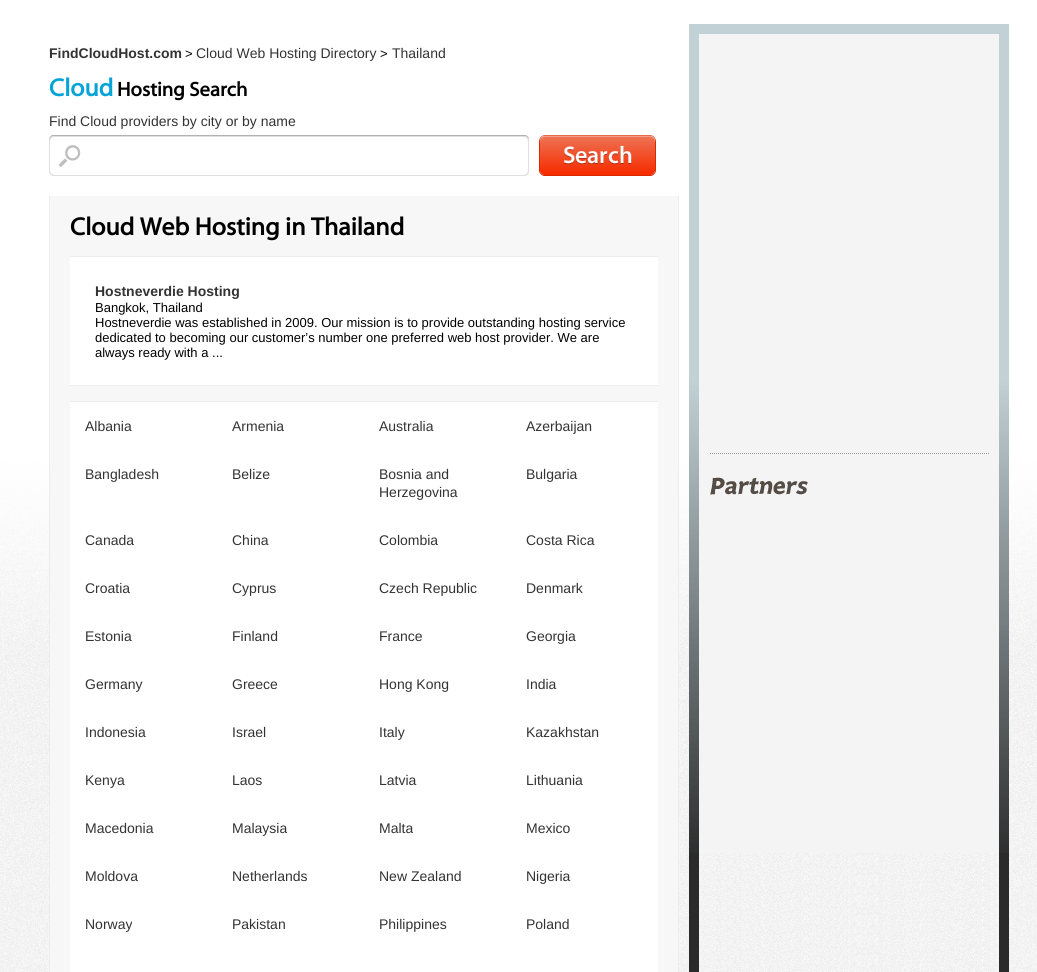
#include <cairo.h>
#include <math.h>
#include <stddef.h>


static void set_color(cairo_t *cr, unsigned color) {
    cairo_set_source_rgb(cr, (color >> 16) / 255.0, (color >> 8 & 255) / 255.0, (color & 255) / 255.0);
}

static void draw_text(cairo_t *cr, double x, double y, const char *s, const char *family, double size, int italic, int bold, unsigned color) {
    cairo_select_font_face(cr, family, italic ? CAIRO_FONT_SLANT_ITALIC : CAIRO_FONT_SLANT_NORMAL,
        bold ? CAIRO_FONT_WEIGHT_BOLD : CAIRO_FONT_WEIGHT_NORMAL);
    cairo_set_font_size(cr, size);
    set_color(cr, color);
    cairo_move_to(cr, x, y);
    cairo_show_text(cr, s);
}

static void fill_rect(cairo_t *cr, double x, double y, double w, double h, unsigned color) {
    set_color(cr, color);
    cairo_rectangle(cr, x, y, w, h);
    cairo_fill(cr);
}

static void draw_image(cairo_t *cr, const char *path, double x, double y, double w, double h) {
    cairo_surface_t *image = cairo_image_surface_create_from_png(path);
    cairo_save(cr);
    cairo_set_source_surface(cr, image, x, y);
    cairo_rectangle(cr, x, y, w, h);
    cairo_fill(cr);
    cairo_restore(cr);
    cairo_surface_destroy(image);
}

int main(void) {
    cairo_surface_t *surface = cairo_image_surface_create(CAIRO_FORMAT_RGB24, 1037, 972);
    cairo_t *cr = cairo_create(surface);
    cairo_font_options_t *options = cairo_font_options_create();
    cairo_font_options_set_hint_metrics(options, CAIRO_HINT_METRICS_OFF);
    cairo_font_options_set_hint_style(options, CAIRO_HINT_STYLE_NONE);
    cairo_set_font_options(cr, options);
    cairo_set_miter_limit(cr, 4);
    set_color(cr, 0xFFFFFF);
    cairo_paint(cr);
    draw_image(cr, "assets/img1.png", 0, 0, 1037, 24);
    fill_rect(cr, 78, 0, 852, 20, 0xFFFFFF);
    draw_image(cr, "assets/img2.png", 0, 24, 1037, 948);
    draw_image(cr, "assets/img3.png", 689, 853, 320, 119);
    draw_text(cr, 49, 58, "FindCloudHost.com", "Liberation Sans", 14, 0, 1, 0x333333);
    draw_text(cr, 185, 58, ">", "Liberation Sans", 13, 0, 0, 0x000000);
    draw_text(cr, 196, 58, "Cloud Web Hosting Directory", "Liberation Sans", 14, 0, 0, 0x333333);
    draw_text(cr, 380, 58, ">", "Liberation Sans", 13, 0, 0, 0x000000);
    draw_text(cr, 392, 58, "Thailand", "Liberation Sans", 14, 0, 0, 0x333333);
    draw_text(cr, 49, 96, "Cloud", "Myriad", 25, 0, 1, 0x05A4D8);
    draw_text(cr, 117, 96, "Hosting Search", "Myriad", 20, 0, 1, 0x000000);
    draw_text(cr, 49, 126, "Find Cloud providers by city or by name", "Liberation Sans", 14, 0, 0, 0x333333);
    draw_image(cr, "assets/img4.png", 49, 135, 480, 41);
    draw_image(cr, "assets/img5.png", 539, 135, 117, 41);
    fill_rect(cr, 50, 196, 628, 776, 0xF7F7F7);
    fill_rect(cr, 678, 196, 1, 776, 0xEDEDED);
    fill_rect(cr, 49, 196, 1, 776, 0xEDEDED);
    draw_text(cr, 70, 235, "Cloud Web Hosting in Thailand", "Myriad", 25, 0, 1, 0x000000);
    fill_rect(cr, 70, 257, 588, 128, 0xFFFFFF);
    fill_rect(cr, 70, 256, 588, 1, 0xEDEDED);
    fill_rect(cr, 70, 385, 588, 1, 0xEDEDED);
    draw_text(cr, 95, 296, "Hostneverdie Hosting", "Liberation Sans", 14, 0, 1, 0x333333);
    draw_text(cr, 95, 312, "Bangkok, Thailand", "Liberation Sans", 13, 0, 0, 0x000000);
    draw_text(cr, 95, 327, "Hostneverdie was established in 2009. Our mission is to provide outstanding hosting service", "Liberation Sans", 13, 0, 0, 0x000000);
    draw_text(cr, 95, 342, "dedicated to becoming our customer’s number one preferred web host provider. We are", "Liberation Sans", 13, 0, 0, 0x000000);
    draw_text(cr, 95, 357, "always ready with a ...", "Liberation Sans", 13, 0, 0, 0x000000);
    fill_rect(cr, 70, 402, 588, 570, 0xFFFFFF);
    fill_rect(cr, 70, 401, 588, 1, 0xEDEDED);
    draw_text(cr, 85, 431, "Albania", "Liberation Sans", 14, 0, 0, 0x333333);
    draw_text(cr, 232, 431, "Armenia", "Liberation Sans", 14, 0, 0, 0x333333);
    draw_text(cr, 379, 431, "Australia", "Liberation Sans", 14, 0, 0, 0x333333);
    draw_text(cr, 526, 431, "Azerbaijan", "Liberation Sans", 14, 0, 0, 0x333333);
    draw_text(cr, 85, 479, "Bangladesh", "Liberation Sans", 14, 0, 0, 0x333333);
    draw_text(cr, 232, 479, "Belize", "Liberation Sans", 14, 0, 0, 0x333333);
    draw_text(cr, 379, 479, "Bosnia and", "Liberation Sans", 14, 0, 0, 0x333333);
    draw_text(cr, 379, 497, "Herzegovina", "Liberation Sans", 14, 0, 0, 0x333333);
    draw_text(cr, 526, 479, "Bulgaria", "Liberation Sans", 14, 0, 0, 0x333333);
    draw_text(cr, 85, 545, "Canada", "Liberation Sans", 14, 0, 0, 0x333333);
    draw_text(cr, 232, 545, "China", "Liberation Sans", 14, 0, 0, 0x333333);
    draw_text(cr, 379, 545, "Colombia", "Liberation Sans", 14, 0, 0, 0x333333);
    draw_text(cr, 526, 545, "Costa Rica", "Liberation Sans", 14, 0, 0, 0x333333);
    draw_text(cr, 85, 593, "Croatia", "Liberation Sans", 14, 0, 0, 0x333333);
    draw_text(cr, 232, 593, "Cyprus", "Liberation Sans", 14, 0, 0, 0x333333);
    draw_text(cr, 379, 593, "Czech Republic", "Liberation Sans", 14, 0, 0, 0x333333);
    draw_text(cr, 526, 593, "Denmark", "Liberation Sans", 14, 0, 0, 0x333333);
    draw_text(cr, 85, 641, "Estonia", "Liberation Sans", 14, 0, 0, 0x333333);
    draw_text(cr, 232, 641, "Finland", "Liberation Sans", 14, 0, 0, 0x333333);
    draw_text(cr, 379, 641, "France", "Liberation Sans", 14, 0, 0, 0x333333);
    draw_text(cr, 526, 641, "Georgia", "Liberation Sans", 14, 0, 0, 0x333333);
    draw_text(cr, 85, 689, "Germany", "Liberation Sans", 14, 0, 0, 0x333333);
    draw_text(cr, 232, 689, "Greece", "Liberation Sans", 14, 0, 0, 0x333333);
    draw_text(cr, 379, 689, "Hong Kong", "Liberation Sans", 14, 0, 0, 0x333333);
    draw_text(cr, 526, 689, "India", "Liberation Sans", 14, 0, 0, 0x333333);
    draw_text(cr, 85, 737, "Indonesia", "Liberation Sans", 14, 0, 0, 0x333333);
    draw_text(cr, 232, 737, "Israel", "Liberation Sans", 14, 0, 0, 0x333333);
    draw_text(cr, 379, 737, "Italy", "Liberation Sans", 14, 0, 0, 0x333333);
    draw_text(cr, 526, 737, "Kazakhstan", "Liberation Sans", 14, 0, 0, 0x333333);
    draw_text(cr, 85, 785, "Kenya", "Liberation Sans", 14, 0, 0, 0x333333);
    draw_text(cr, 232, 785, "Laos", "Liberation Sans", 14, 0, 0, 0x333333);
    draw_text(cr, 379, 785, "Latvia", "Liberation Sans", 14, 0, 0, 0x333333);
    draw_text(cr, 526, 785, "Lithuania", "Liberation Sans", 14, 0, 0, 0x333333);
    draw_text(cr, 85, 833, "Macedonia", "Liberation Sans", 14, 0, 0, 0x333333);
    draw_text(cr, 232, 833, "Malaysia", "Liberation Sans", 14, 0, 0, 0x333333);
    draw_text(cr, 379, 833, "Malta", "Liberation Sans", 14, 0, 0, 0x333333);
    draw_text(cr, 526, 833, "Mexico", "Liberation Sans", 14, 0, 0, 0x333333);
    draw_text(cr, 85, 881, "Moldova", "Liberation Sans", 14, 0, 0, 0x333333);
    draw_text(cr, 232, 881, "Netherlands", "Liberation Sans", 14, 0, 0, 0x333333);
    draw_text(cr, 379, 881, "New Zealand", "Liberation Sans", 14, 0, 0, 0x333333);
    draw_text(cr, 526, 881, "Nigeria", "Liberation Sans", 14, 0, 0, 0x333333);
    draw_text(cr, 85, 929, "Norway", "Liberation Sans", 14, 0, 0, 0x333333);
    draw_text(cr, 232, 929, "Pakistan", "Liberation Sans", 14, 0, 0, 0x333333);
    draw_text(cr, 379, 929, "Philippines", "Liberation Sans", 14, 0, 0, 0x333333);
    draw_text(cr, 526, 929, "Poland", "Liberation Sans", 14, 0, 0, 0x333333);
    draw_image(cr, "assets/img6.png", 689, 24, 320, 829);
    fill_rect(cr, 699, 34, 300, 819, 0xF4F4F4);
    draw_image(cr, "assets/img7.png", 709, 453, 280, 1);
    draw_image(cr, "assets/img8.png", 710, 477, 98, 18);
    cairo_surface_write_to_png(surface, "output.png");
    cairo_font_options_destroy(options);
    cairo_destroy(cr);
    cairo_surface_destroy(surface);
    return 0;
}
